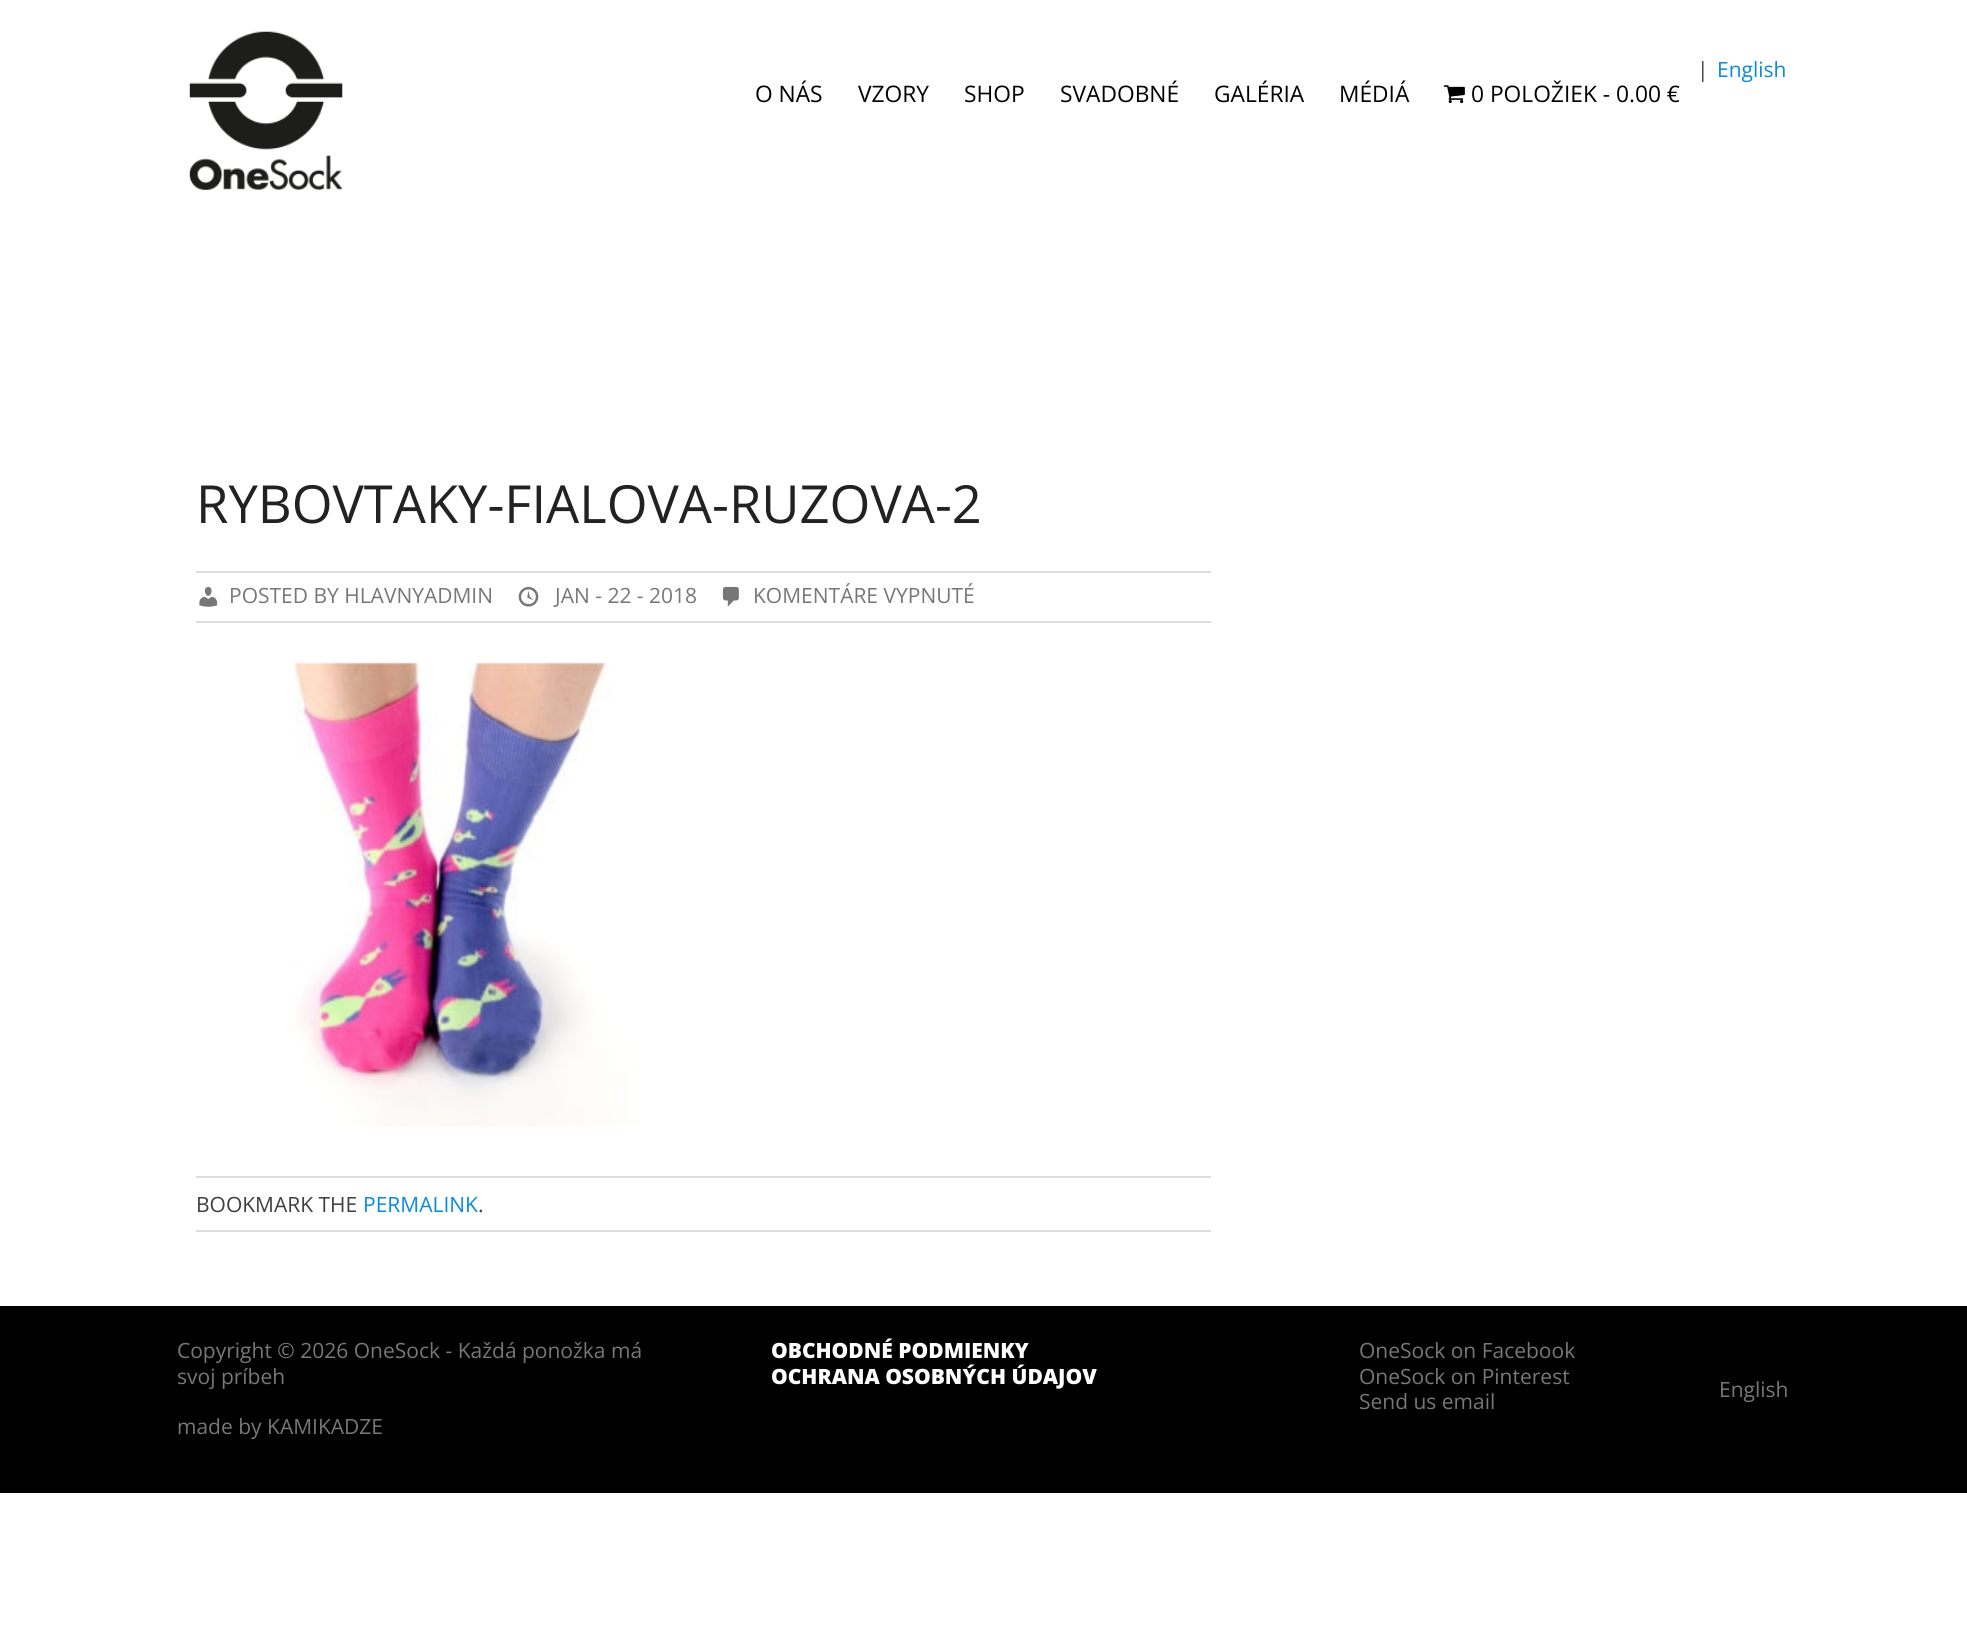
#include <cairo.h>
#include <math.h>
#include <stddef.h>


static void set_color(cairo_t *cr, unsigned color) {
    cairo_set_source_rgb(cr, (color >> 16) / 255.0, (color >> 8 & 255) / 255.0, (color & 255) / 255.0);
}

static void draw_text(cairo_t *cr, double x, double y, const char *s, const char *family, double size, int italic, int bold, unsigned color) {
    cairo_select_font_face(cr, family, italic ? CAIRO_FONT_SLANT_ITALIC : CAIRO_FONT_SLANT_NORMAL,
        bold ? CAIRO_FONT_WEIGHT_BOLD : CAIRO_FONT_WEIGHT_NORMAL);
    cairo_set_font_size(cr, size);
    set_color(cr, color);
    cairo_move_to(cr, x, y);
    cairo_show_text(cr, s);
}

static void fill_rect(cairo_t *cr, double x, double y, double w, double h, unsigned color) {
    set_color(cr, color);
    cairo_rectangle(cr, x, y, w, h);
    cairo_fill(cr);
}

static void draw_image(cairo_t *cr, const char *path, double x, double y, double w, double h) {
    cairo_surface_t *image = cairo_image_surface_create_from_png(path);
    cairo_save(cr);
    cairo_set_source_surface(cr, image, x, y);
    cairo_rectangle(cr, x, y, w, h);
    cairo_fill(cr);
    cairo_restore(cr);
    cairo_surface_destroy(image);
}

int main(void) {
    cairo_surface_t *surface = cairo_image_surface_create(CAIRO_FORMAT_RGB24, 1967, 1648);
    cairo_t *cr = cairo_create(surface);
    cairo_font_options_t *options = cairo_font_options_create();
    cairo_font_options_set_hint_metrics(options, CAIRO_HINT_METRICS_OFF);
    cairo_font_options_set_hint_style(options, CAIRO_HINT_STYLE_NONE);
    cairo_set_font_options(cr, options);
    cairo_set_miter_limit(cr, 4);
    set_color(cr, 0xFFFFFF);
    cairo_paint(cr);
    draw_image(cr, "assets/img1.png", 189, 31, 154, 159);
    draw_text(cr, 1697, 77, "|", "Open Sans", 21, 0, 0, 0x404040);
    draw_text(cr, 1717, 77, "English", "Open Sans", 21, 0, 0, 0x0A8BDB);
    draw_text(cr, 755, 102, "O NÁS", "Open Sans", 22.75, 0, 0, 0x000000);
    draw_text(cr, 858, 102, "VZORY", "Open Sans", 22.75, 0, 0, 0x000000);
    draw_text(cr, 964, 102, "SHOP", "Open Sans", 22.75, 0, 0, 0x000000);
    draw_text(cr, 1060, 102, "SVADOBNÉ", "Open Sans", 22.75, 0, 0, 0x000000);
    draw_text(cr, 1214, 102, "GALÉRIA", "Open Sans", 22.75, 0, 0, 0x000000);
    draw_text(cr, 1339, 102, "MÉDIÁ", "Open Sans", 22.75, 0, 0, 0x000000);
    draw_image(cr, "assets/img2.png", 1443, 85, 22, 19);
    draw_text(cr, 1471, 102, "0 POLOŽIEK - 0.00 €", "Open Sans", 22.75, 0, 0, 0x000000);
    draw_text(cr, 196, 523, "RYBOVTAKY-FIALOVA-RUZOVA-2", "Open Sans", 52.5, 0, 0, 0x222222);
    fill_rect(cr, 196, 571, 1015, 2, 0xDDDDDD);
    fill_rect(cr, 196, 621, 1015, 2, 0xDDDDDD);
    draw_image(cr, "assets/img3.png", 199, 586, 19, 21);
    draw_text(cr, 229, 603, "POSTED BY HLAVNYADMIN", "Open Sans", 21, 0, 0, 0x777777);
    draw_image(cr, "assets/img4.png", 518, 586, 21, 21);
    draw_text(cr, 555, 603, "JAN - 22 - 2018", "Open Sans", 21, 0, 0, 0x777777);
    draw_image(cr, "assets/img5.png", 722, 586, 17, 21);
    draw_text(cr, 753, 603, "KOMENTÁRE VYPNUTÉ", "Open Sans", 21, 0, 0, 0x777777);
    draw_image(cr, "assets/img6.png", 294, 662, 347, 465);
    fill_rect(cr, 196, 1176, 1015, 2, 0xDDDDDD);
    fill_rect(cr, 196, 1230, 1015, 2, 0xDDDDDD);
    draw_text(cr, 196, 1212, "BOOKMARK THE", "Open Sans", 21, 0, 0, 0x404040);
    draw_text(cr, 363, 1212, "PERMALINK", "Open Sans", 21, 0, 0, 0x0A8BDB);
    draw_text(cr, 478, 1212, ".", "Open Sans", 21, 0, 0, 0x404040);
    fill_rect(cr, 0, 1306, 1967, 187, 0x000000);
    draw_text(cr, 177, 1358, "Copyright © 2026 OneSock - Každá ponožka má", "Open Sans", 21, 0, 0, 0x777777);
    draw_text(cr, 177, 1384, "svoj príbeh", "Open Sans", 21, 0, 0, 0x777777);
    draw_text(cr, 177, 1434, "made by KAMIKADZE", "Open Sans", 21, 0, 0, 0x777777);
    draw_text(cr, 771, 1358, "OBCHODNÉ PODMIENKY", "Open Sans ExtraBold", 21, 0, 0, 0xFFFFFF);
    draw_text(cr, 771, 1384, "OCHRANA OSOBNÝCH ÚDAJOV", "Open Sans ExtraBold", 21, 0, 0, 0xFFFFFF);
    draw_text(cr, 1359, 1358, "OneSock on Facebook", "Open Sans", 21, 0, 0, 0x777777);
    draw_text(cr, 1359, 1384, "OneSock on Pinterest", "Open Sans", 21, 0, 0, 0x777777);
    draw_text(cr, 1359, 1409, "Send us email", "Open Sans", 21, 0, 0, 0x777777);
    draw_text(cr, 1719, 1397, "English", "Open Sans", 21, 0, 0, 0x777777);
    cairo_surface_write_to_png(surface, "output.png");
    cairo_font_options_destroy(options);
    cairo_destroy(cr);
    cairo_surface_destroy(surface);
    return 0;
}
